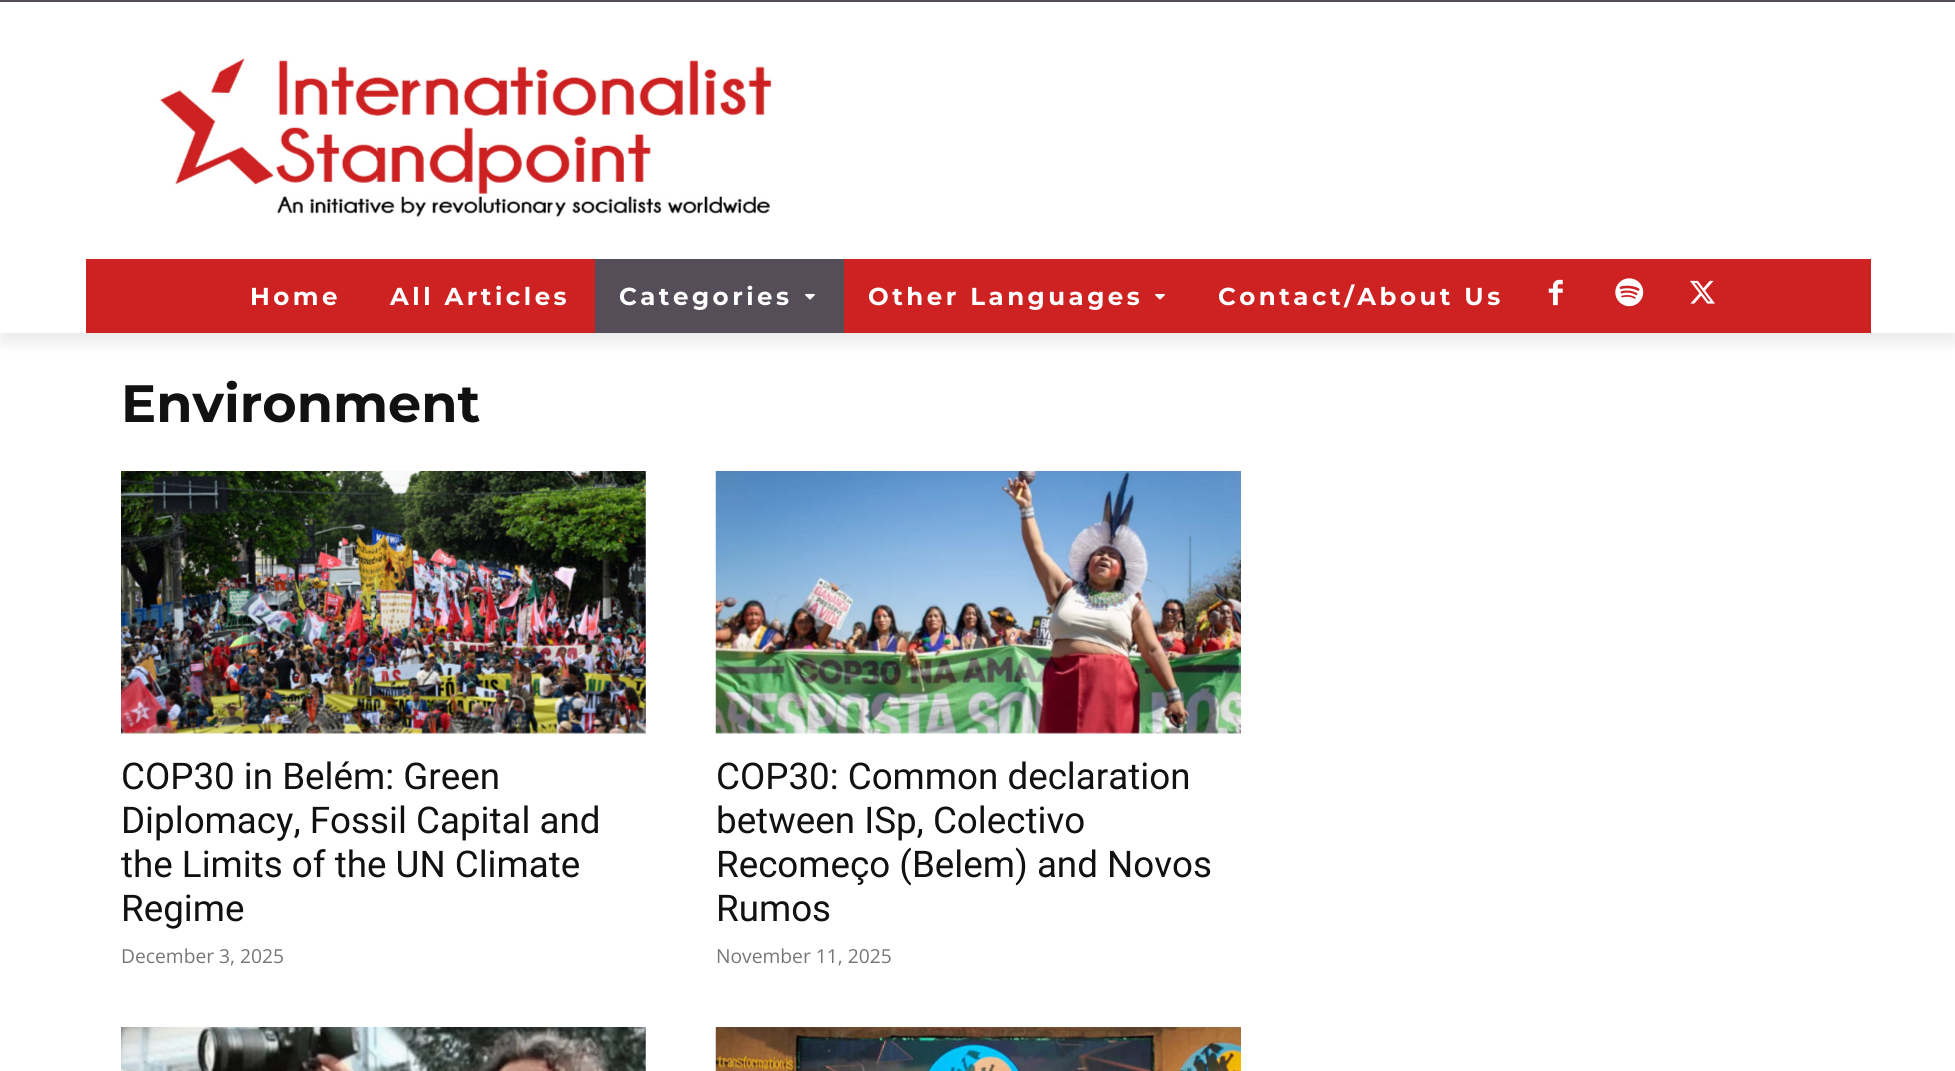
#include <cairo.h>
#include <math.h>
#include <stddef.h>


static void set_color(cairo_t *cr, unsigned color) {
    cairo_set_source_rgb(cr, (color >> 16) / 255.0, (color >> 8 & 255) / 255.0, (color & 255) / 255.0);
}

static void draw_text(cairo_t *cr, double x, double y, const char *s, const char *family, double size, int italic, int bold, unsigned color) {
    cairo_select_font_face(cr, family, italic ? CAIRO_FONT_SLANT_ITALIC : CAIRO_FONT_SLANT_NORMAL,
        bold ? CAIRO_FONT_WEIGHT_BOLD : CAIRO_FONT_WEIGHT_NORMAL);
    cairo_set_font_size(cr, size);
    set_color(cr, color);
    cairo_move_to(cr, x, y);
    cairo_show_text(cr, s);
}

static void draw_spaced(cairo_t *cr, double x, double y, const char *s, double letter, double word) {
    cairo_move_to(cr, x, y);
    while (*s) {
        char ch[5] = {0};
        int n = 0;
        do ch[n++] = *s++; while ((*s & 0xC0) == 0x80);
        cairo_show_text(cr, ch);
        cairo_rel_move_to(cr, letter + word * (*ch == ' '), 0);
    }
}

static void fill_rect(cairo_t *cr, double x, double y, double w, double h, unsigned color) {
    set_color(cr, color);
    cairo_rectangle(cr, x, y, w, h);
    cairo_fill(cr);
}

static void rounded_rect(cairo_t *cr, double x, double y, double w, double h, double r) {
    cairo_new_sub_path(cr);
    cairo_arc(cr, x + w - r, y + h - r, r, 0, M_PI / 2);
    cairo_arc(cr, x + r, y + h - r, r, M_PI / 2, M_PI);
    cairo_arc(cr, x + r, y + r, r, M_PI, 1.5 * M_PI);
    cairo_arc(cr, x + w - r, y + r, r, 1.5 * M_PI, 2 * M_PI);
    cairo_close_path(cr);
}

static void draw_shadow(cairo_t *cr, double x, double y, double w, double h, double r, double blur, double alpha) {
    cairo_push_group_with_content(cr, CAIRO_CONTENT_ALPHA);
    cairo_set_operator(cr, CAIRO_OPERATOR_SOURCE);
    for (int i = 15; i >= -15 && fmin(w, h) + blur * i / 3 > 0; i -= 2) {
        double e = blur * i / 6;
        cairo_set_source_rgba(cr, 0, 0, 0, alpha * erfc((i - 1) / 8.5) / 2);
        rounded_rect(cr, x - e, y - e, w + 2 * e, h + 2 * e, fmax(0, fmin(r + e + blur * .6, fmin(w, h) / 2 + e)));
        cairo_fill(cr);
    }
    cairo_pattern_t *soft = cairo_pop_group(cr);
    cairo_mask(cr, soft);
    cairo_pattern_destroy(soft);
}

static void draw_image(cairo_t *cr, const char *path, double x, double y, double w, double h) {
    cairo_surface_t *image = cairo_image_surface_create_from_png(path);
    cairo_save(cr);
    cairo_set_source_surface(cr, image, x, y);
    cairo_rectangle(cr, x, y, w, h);
    cairo_fill(cr);
    cairo_restore(cr);
    cairo_surface_destroy(image);
}

int main(void) {
    cairo_surface_t *surface = cairo_image_surface_create(CAIRO_FORMAT_RGB24, 1955, 1071);
    cairo_t *cr = cairo_create(surface);
    cairo_font_options_t *options = cairo_font_options_create();
    cairo_font_options_set_hint_metrics(options, CAIRO_HINT_METRICS_OFF);
    cairo_font_options_set_hint_style(options, CAIRO_HINT_STYLE_NONE);
    cairo_set_font_options(cr, options);
    cairo_set_miter_limit(cr, 4);
    set_color(cr, 0xFFFFFF);
    cairo_paint(cr);
    fill_rect(cr, 0, 0, 1955, 2, 0x554D58);
    draw_image(cr, "assets/img1.png", 159, 58, 613, 159);
    fill_rect(cr, 86, 259, 1785, 74, 0xCD2122);
    draw_image(cr, "assets/img4.png", 1548, 279, 15, 27);
    draw_image(cr, "assets/img5.png", 1615, 278, 29, 29);
    draw_image(cr, "assets/img6.png", 1690, 280, 25, 24);
    cairo_save(cr);
    cairo_set_fill_rule(cr, CAIRO_FILL_RULE_EVEN_ODD);
    cairo_new_path(cr);
    cairo_move_to(cr, 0, 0);
    cairo_line_to(cr, 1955, 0);
    cairo_line_to(cr, 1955, 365);
    cairo_line_to(cr, 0, 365);
    cairo_close_path(cr);
    cairo_move_to(cr, 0, 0);
    cairo_line_to(cr, 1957, 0);
    cairo_line_to(cr, 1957, 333);
    cairo_line_to(cr, 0, 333);
    cairo_close_path(cr);
    cairo_clip(cr);
    set_color(cr, 0x000000);
    draw_shadow(cr, 0, 11, 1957, 332, 0, 7, 0.08);
    cairo_restore(cr);
    cairo_select_font_face(cr, "Montserrat", CAIRO_FONT_SLANT_NORMAL, CAIRO_FONT_WEIGHT_BOLD);
    cairo_set_font_size(cr, 24.5);
    set_color(cr, 0xFFFFFF);
    draw_spaced(cr, 250, 305, "Home", 3.5, 0);
    draw_spaced(cr, 390, 305, "All Articles", 3.5, 0);
    fill_rect(cr, 595, 259, 249, 74, 0x554D58);
    set_color(cr, 0xFFFFFF);
    draw_spaced(cr, 619, 305, "Categories", 3.5, 0);
    draw_image(cr, "assets/img2.png", 805, 294, 10, 6);
    draw_spaced(cr, 868, 305, "Other Languages", 3.5, 0);
    draw_image(cr, "assets/img3.png", 1155, 294, 10, 6);
    draw_spaced(cr, 1218, 305, "Contact/About Us", 3.5, 0);
    draw_text(cr, 121, 422, "Environment", "Montserrat", 52.5, 0, 1, 0x111111);
    draw_image(cr, "assets/img7.png", 121, 471, 525, 263);
    draw_text(cr, 121, 789, "COP30 in Belém: Green", "Roboto", 36.75, 0, 0, 0x111111);
    draw_text(cr, 121, 833, "Diplomacy, Fossil Capital and", "Roboto", 36.75, 0, 0, 0x111111);
    draw_text(cr, 121, 877, "the Limits of the UN Climate", "Roboto", 36.75, 0, 0, 0x111111);
    draw_text(cr, 121, 921, "Regime", "Roboto", 36.75, 0, 0, 0x111111);
    draw_text(cr, 121, 963, "December 3, 2025", "Open Sans", 19.25, 0, 0, 0x767676);
    draw_image(cr, "assets/img8.png", 715, 471, 526, 263);
    draw_text(cr, 716, 789, "COP30: Common declaration", "Roboto", 36.75, 0, 0, 0x111111);
    draw_text(cr, 716, 833, "between ISp, Colectivo", "Roboto", 36.75, 0, 0, 0x111111);
    draw_text(cr, 716, 877, "Recomeço (Belem) and Novos", "Roboto", 36.75, 0, 0, 0x111111);
    draw_text(cr, 716, 921, "Rumos", "Roboto", 36.75, 0, 0, 0x111111);
    draw_text(cr, 716, 963, "November 11, 2025", "Open Sans", 19.25, 0, 0, 0x767676);
    draw_image(cr, "assets/img9.png", 121, 1027, 525, 44);
    draw_image(cr, "assets/img10.png", 715, 1027, 526, 44);
    cairo_surface_write_to_png(surface, "output.png");
    cairo_font_options_destroy(options);
    cairo_destroy(cr);
    cairo_surface_destroy(surface);
    return 0;
}
